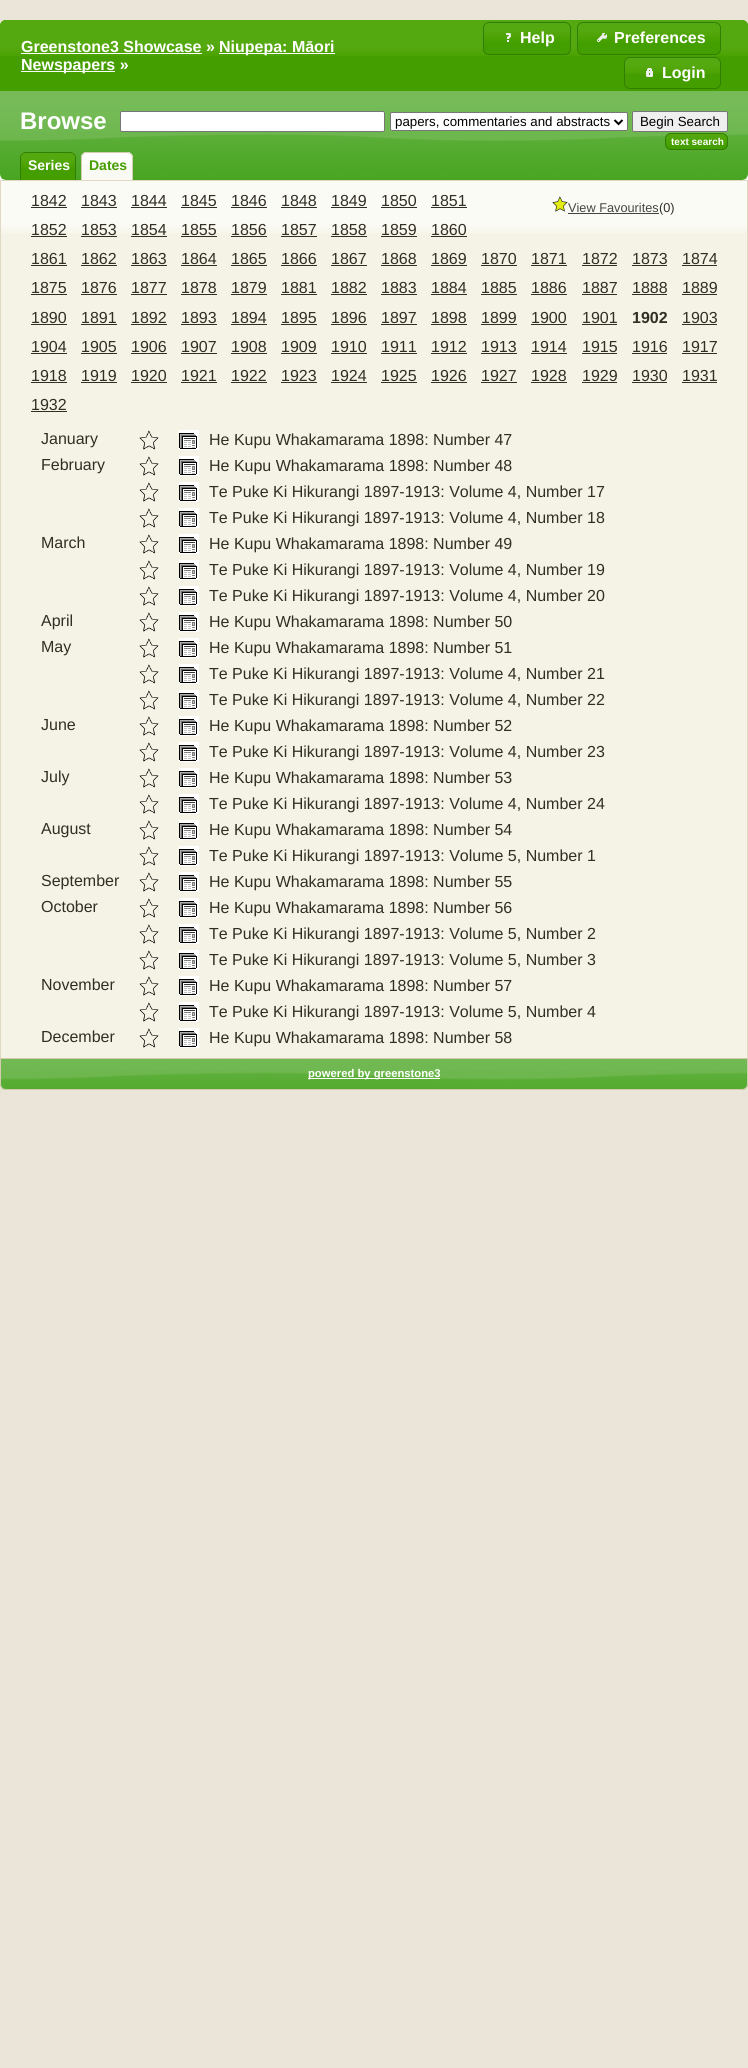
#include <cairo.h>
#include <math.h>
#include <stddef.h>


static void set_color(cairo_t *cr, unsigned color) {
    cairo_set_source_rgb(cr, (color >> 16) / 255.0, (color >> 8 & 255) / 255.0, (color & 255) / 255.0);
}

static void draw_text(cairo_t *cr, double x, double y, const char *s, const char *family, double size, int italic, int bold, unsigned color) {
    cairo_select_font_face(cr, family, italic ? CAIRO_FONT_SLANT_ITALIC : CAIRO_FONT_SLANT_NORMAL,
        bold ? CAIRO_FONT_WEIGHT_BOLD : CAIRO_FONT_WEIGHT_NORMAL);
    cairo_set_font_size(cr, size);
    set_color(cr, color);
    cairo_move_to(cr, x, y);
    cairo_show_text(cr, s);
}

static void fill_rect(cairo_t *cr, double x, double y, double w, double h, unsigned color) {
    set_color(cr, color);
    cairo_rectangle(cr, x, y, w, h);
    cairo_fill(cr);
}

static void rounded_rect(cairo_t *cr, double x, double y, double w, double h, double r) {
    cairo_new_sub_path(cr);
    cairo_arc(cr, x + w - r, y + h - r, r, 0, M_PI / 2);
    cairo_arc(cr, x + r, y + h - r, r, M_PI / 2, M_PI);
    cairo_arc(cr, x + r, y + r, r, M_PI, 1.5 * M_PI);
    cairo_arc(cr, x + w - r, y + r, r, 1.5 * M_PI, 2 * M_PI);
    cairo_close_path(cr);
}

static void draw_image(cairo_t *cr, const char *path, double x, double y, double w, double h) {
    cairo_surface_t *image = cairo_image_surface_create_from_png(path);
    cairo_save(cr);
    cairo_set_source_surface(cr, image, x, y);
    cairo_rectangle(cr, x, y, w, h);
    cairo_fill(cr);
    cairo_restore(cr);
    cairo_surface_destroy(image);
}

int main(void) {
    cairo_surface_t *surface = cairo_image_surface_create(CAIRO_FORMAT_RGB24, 748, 2068);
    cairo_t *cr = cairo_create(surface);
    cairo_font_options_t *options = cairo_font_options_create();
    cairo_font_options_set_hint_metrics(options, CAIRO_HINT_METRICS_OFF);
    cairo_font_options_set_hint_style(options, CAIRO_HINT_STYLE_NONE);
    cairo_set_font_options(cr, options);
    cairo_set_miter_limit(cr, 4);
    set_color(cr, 0xEAE4D9);
    cairo_paint(cr);
    set_color(cr, 0x459E00);
    cairo_new_path(cr);
    cairo_move_to(cr, 6, 20);
    cairo_line_to(cr, 742, 20);
    cairo_curve_to(cr, 745.5, 20, 748, 22.5, 748, 26);
    cairo_line_to(cr, 748, 91);
    cairo_line_to(cr, 0, 91);
    cairo_line_to(cr, 0, 26);
    cairo_curve_to(cr, 0, 22.5, 2.5, 20, 6, 20);
    cairo_close_path(cr);
    cairo_fill(cr);
    draw_image(cr, "assets/img1.png", 0, 20, 748, 36);
    draw_text(cr, 21, 52, "Greenstone3 Showcase »", "Liberation Sans", 16, 0, 1, 0xFFFFFF);
    fill_rect(cr, 21, 53, 181, 1, 0xFFFFFF);
    fill_rect(cr, 219, 53, 116, 1, 0xFFFFFF);
    draw_text(cr, 219, 52, "Niupepa: Māori", "Liberation Sans", 16, 0, 1, 0xFFFFFF);
    fill_rect(cr, 21, 71, 94, 1, 0xFFFFFF);
    draw_text(cr, 21, 70, "Newspapers »", "Liberation Sans", 16, 0, 1, 0xFFFFFF);
    draw_image(cr, "assets/img2.png", 483, 22, 88, 32);
    rounded_rect(cr, 483.5, 22.5, 87, 32, 5.5);
    set_color(cr, 0x327E04);
    cairo_set_line_width(cr, 1);
    cairo_stroke(cr);
    draw_image(cr, "assets/img3.png", 506, 33, 5, 9);
    draw_text(cr, 520, 43, "Help", "Liberation Sans", 16, 0, 1, 0xFFFFFF);
    draw_image(cr, "assets/img4.png", 577, 22, 144, 32);
    rounded_rect(cr, 577.5, 22.5, 143, 32, 5.5);
    set_color(cr, 0x327E04);
    cairo_stroke(cr);
    draw_image(cr, "assets/img5.png", 597, 33, 10, 9);
    draw_text(cr, 614, 43, "Preferences", "Liberation Sans", 16, 0, 1, 0xFFFFFF);
    draw_image(cr, "assets/img6.png", 624, 57, 97, 17);
    rounded_rect(cr, 624.5, 57.5, 96, 31, 5.5);
    set_color(cr, 0x327E04);
    cairo_stroke(cr);
    draw_image(cr, "assets/img7.png", 646, 68, 7, 9);
    draw_text(cr, 662, 78, "Login", "Liberation Sans", 16, 0, 1, 0xFFFFFF);
    rounded_rect(cr, 0, 91, 748, 999, 6);
    cairo_fill(cr);
    draw_image(cr, "assets/img8.png", 0, 91, 748, 89);
    draw_text(cr, 20, 129, "Browse", "Liberation Sans", 24, 0, 1, 0xFFFFFF);
    rounded_rect(cr, 120.5, 111.5, 264, 20, 1.5);
    cairo_fill_preserve(cr);
    set_color(cr, 0x767676);
    cairo_stroke(cr);
    set_color(cr, 0xFFFFFF);
    rounded_rect(cr, 390.5, 112.5, 237, 18, 1.5);
    cairo_fill_preserve(cr);
    set_color(cr, 0x767676);
    cairo_stroke(cr);
    cairo_new_path(cr);
    cairo_move_to(cr, 614.5, 120);
    cairo_line_to(cr, 618.5, 124);
    cairo_line_to(cr, 622.5, 120);
    set_color(cr, 0x000000);
    cairo_set_line_width(cr, 2);
    cairo_stroke(cr);
    draw_text(cr, 395, 126, "papers, commentaries and abstracts", "Liberation Sans", 13.3, 0, 0, 0x000000);
    set_color(cr, 0xEFEFEF);
    rounded_rect(cr, 632.5, 111.5, 95, 20, 1.5);
    cairo_fill_preserve(cr);
    set_color(cr, 0x767676);
    cairo_set_line_width(cr, 1);
    cairo_stroke(cr);
    draw_text(cr, 640, 126, "Begin Search", "Liberation Sans", 13.3, 0, 0, 0x000000);
    draw_image(cr, "assets/img9.png", 665, 133, 63, 17);
    rounded_rect(cr, 665.5, 133.5, 62, 16, 5.5);
    set_color(cr, 0x327E04);
    cairo_stroke(cr);
    draw_text(cr, 671, 145, "text search", "Liberation Sans", 10, 0, 1, 0xFFFFFF);
    set_color(cr, 0x459E00);
    cairo_new_path(cr);
    cairo_move_to(cr, 26, 152);
    cairo_line_to(cr, 70, 152);
    cairo_curve_to(cr, 73.5, 152, 76, 154.5, 76, 158);
    cairo_line_to(cr, 76, 180);
    cairo_line_to(cr, 20, 180);
    cairo_line_to(cr, 20, 158);
    cairo_curve_to(cr, 20, 154.5, 22.5, 152, 26, 152);
    cairo_close_path(cr);
    cairo_fill(cr);
    draw_image(cr, "assets/img10.png", 20, 152, 56, 15);
    set_color(cr, 0x327E04);
    cairo_set_fill_rule(cr, CAIRO_FILL_RULE_EVEN_ODD);
    cairo_new_path(cr);
    cairo_move_to(cr, 26, 152);
    cairo_line_to(cr, 70, 152);
    cairo_curve_to(cr, 73, 152, 76, 155, 76, 158);
    cairo_line_to(cr, 76, 180);
    cairo_line_to(cr, 20, 180);
    cairo_line_to(cr, 20, 158);
    cairo_curve_to(cr, 20, 155, 23, 152, 26, 152);
    cairo_close_path(cr);
    cairo_move_to(cr, 26, 153);
    cairo_line_to(cr, 70, 153);
    cairo_curve_to(cr, 73, 153, 75, 155, 75, 158);
    cairo_line_to(cr, 75, 180);
    cairo_line_to(cr, 21, 180);
    cairo_line_to(cr, 21, 158);
    cairo_curve_to(cr, 21, 155, 23, 153, 26, 153);
    cairo_close_path(cr);
    cairo_fill(cr);
    draw_text(cr, 28, 170, "Series", "Liberation Sans", 14, 0, 1, 0xFFFFFF);
    set_color(cr, 0xFAFAF4);
    cairo_new_path(cr);
    cairo_move_to(cr, 87, 152);
    cairo_line_to(cr, 127, 152);
    cairo_curve_to(cr, 130.5, 152, 133, 154.5, 133, 158);
    cairo_line_to(cr, 133, 180);
    cairo_line_to(cr, 81, 180);
    cairo_line_to(cr, 81, 158);
    cairo_curve_to(cr, 81, 154.5, 83.5, 152, 87, 152);
    cairo_close_path(cr);
    cairo_fill(cr);
    draw_image(cr, "assets/img11.png", 81, 152, 52, 12);
    set_color(cr, 0xD4CCB0);
    cairo_new_path(cr);
    cairo_move_to(cr, 87, 152);
    cairo_line_to(cr, 127, 152);
    cairo_curve_to(cr, 130, 152, 133, 155, 133, 158);
    cairo_line_to(cr, 133, 180);
    cairo_line_to(cr, 81, 180);
    cairo_line_to(cr, 81, 158);
    cairo_curve_to(cr, 81, 155, 84, 152, 87, 152);
    cairo_close_path(cr);
    cairo_move_to(cr, 87, 153);
    cairo_line_to(cr, 127, 153);
    cairo_curve_to(cr, 130, 153, 132, 155, 132, 158);
    cairo_line_to(cr, 132, 180);
    cairo_line_to(cr, 82, 180);
    cairo_line_to(cr, 82, 158);
    cairo_curve_to(cr, 82, 155, 84, 153, 87, 153);
    cairo_close_path(cr);
    cairo_fill(cr);
    draw_text(cr, 89, 170, "Dates", "Liberation Sans", 14, 0, 1, 0x459E00);
    fill_rect(cr, 1, 234, 746, 824, 0xF5F3E5);
    draw_image(cr, "assets/img12.png", 1, 181, 746, 53);
    cairo_rectangle(cr, 0.5, 180.5, 747, 878);
    set_color(cr, 0xDFD9C3);
    cairo_stroke(cr);
    draw_text(cr, 31, 206, "1842", "Liberation Sans", 16, 0, 0, 0x312E25);
    fill_rect(cr, 31, 207, 36, 1, 0x312E25);
    draw_text(cr, 81, 206, "1843", "Liberation Sans", 16, 0, 0, 0x312E25);
    fill_rect(cr, 81, 207, 36, 1, 0x312E25);
    draw_text(cr, 131, 206, "1844", "Liberation Sans", 16, 0, 0, 0x312E25);
    fill_rect(cr, 131, 207, 36, 1, 0x312E25);
    draw_text(cr, 181, 206, "1845", "Liberation Sans", 16, 0, 0, 0x312E25);
    fill_rect(cr, 181, 207, 36, 1, 0x312E25);
    draw_text(cr, 231, 206, "1846", "Liberation Sans", 16, 0, 0, 0x312E25);
    fill_rect(cr, 231, 207, 36, 1, 0x312E25);
    draw_text(cr, 281, 206, "1848", "Liberation Sans", 16, 0, 0, 0x312E25);
    fill_rect(cr, 281, 207, 36, 1, 0x312E25);
    draw_text(cr, 331, 206, "1849", "Liberation Sans", 16, 0, 0, 0x312E25);
    fill_rect(cr, 331, 207, 36, 1, 0x312E25);
    draw_text(cr, 381, 206, "1850", "Liberation Sans", 16, 0, 0, 0x312E25);
    fill_rect(cr, 381, 207, 36, 1, 0x312E25);
    draw_text(cr, 431, 206, "1851", "Liberation Sans", 16, 0, 0, 0x312E25);
    fill_rect(cr, 431, 207, 36, 1, 0x312E25);
    draw_text(cr, 31, 235, "1852", "Liberation Sans", 16, 0, 0, 0x312E25);
    fill_rect(cr, 31, 236, 36, 1, 0x312E25);
    draw_text(cr, 81, 235, "1853", "Liberation Sans", 16, 0, 0, 0x312E25);
    fill_rect(cr, 81, 236, 36, 1, 0x312E25);
    draw_text(cr, 131, 235, "1854", "Liberation Sans", 16, 0, 0, 0x312E25);
    fill_rect(cr, 131, 236, 36, 1, 0x312E25);
    draw_text(cr, 181, 235, "1855", "Liberation Sans", 16, 0, 0, 0x312E25);
    fill_rect(cr, 181, 236, 36, 1, 0x312E25);
    draw_text(cr, 231, 235, "1856", "Liberation Sans", 16, 0, 0, 0x312E25);
    fill_rect(cr, 231, 236, 36, 1, 0x312E25);
    draw_text(cr, 281, 235, "1857", "Liberation Sans", 16, 0, 0, 0x312E25);
    fill_rect(cr, 281, 236, 36, 1, 0x312E25);
    draw_text(cr, 331, 235, "1858", "Liberation Sans", 16, 0, 0, 0x312E25);
    fill_rect(cr, 331, 236, 36, 1, 0x312E25);
    draw_text(cr, 381, 235, "1859", "Liberation Sans", 16, 0, 0, 0x312E25);
    fill_rect(cr, 381, 236, 36, 1, 0x312E25);
    draw_text(cr, 431, 235, "1860", "Liberation Sans", 16, 0, 0, 0x312E25);
    fill_rect(cr, 431, 236, 36, 1, 0x312E25);
    draw_text(cr, 31, 264, "1861", "Liberation Sans", 16, 0, 0, 0x312E25);
    fill_rect(cr, 31, 265, 36, 1, 0x312E25);
    draw_text(cr, 81, 264, "1862", "Liberation Sans", 16, 0, 0, 0x312E25);
    fill_rect(cr, 81, 265, 36, 1, 0x312E25);
    draw_text(cr, 131, 264, "1863", "Liberation Sans", 16, 0, 0, 0x312E25);
    fill_rect(cr, 131, 265, 36, 1, 0x312E25);
    draw_text(cr, 181, 264, "1864", "Liberation Sans", 16, 0, 0, 0x312E25);
    fill_rect(cr, 181, 265, 36, 1, 0x312E25);
    draw_text(cr, 231, 264, "1865", "Liberation Sans", 16, 0, 0, 0x312E25);
    fill_rect(cr, 231, 265, 36, 1, 0x312E25);
    draw_text(cr, 281, 264, "1866", "Liberation Sans", 16, 0, 0, 0x312E25);
    fill_rect(cr, 281, 265, 36, 1, 0x312E25);
    draw_text(cr, 331, 264, "1867", "Liberation Sans", 16, 0, 0, 0x312E25);
    fill_rect(cr, 331, 265, 36, 1, 0x312E25);
    draw_text(cr, 381, 264, "1868", "Liberation Sans", 16, 0, 0, 0x312E25);
    fill_rect(cr, 381, 265, 36, 1, 0x312E25);
    draw_text(cr, 431, 264, "1869", "Liberation Sans", 16, 0, 0, 0x312E25);
    fill_rect(cr, 431, 265, 36, 1, 0x312E25);
    draw_text(cr, 481, 264, "1870", "Liberation Sans", 16, 0, 0, 0x312E25);
    fill_rect(cr, 481, 265, 36, 1, 0x312E25);
    draw_text(cr, 531, 264, "1871", "Liberation Sans", 16, 0, 0, 0x312E25);
    fill_rect(cr, 531, 265, 36, 1, 0x312E25);
    draw_text(cr, 582, 264, "1872", "Liberation Sans", 16, 0, 0, 0x312E25);
    fill_rect(cr, 582, 265, 35, 1, 0x312E25);
    draw_text(cr, 632, 264, "1873", "Liberation Sans", 16, 0, 0, 0x312E25);
    fill_rect(cr, 632, 265, 35, 1, 0x312E25);
    draw_text(cr, 682, 264, "1874", "Liberation Sans", 16, 0, 0, 0x312E25);
    fill_rect(cr, 682, 265, 35, 1, 0x312E25);
    draw_text(cr, 31, 293, "1875", "Liberation Sans", 16, 0, 0, 0x312E25);
    fill_rect(cr, 31, 294, 36, 1, 0x312E25);
    draw_text(cr, 81, 293, "1876", "Liberation Sans", 16, 0, 0, 0x312E25);
    fill_rect(cr, 81, 294, 36, 1, 0x312E25);
    draw_text(cr, 131, 293, "1877", "Liberation Sans", 16, 0, 0, 0x312E25);
    fill_rect(cr, 131, 294, 36, 1, 0x312E25);
    draw_text(cr, 181, 293, "1878", "Liberation Sans", 16, 0, 0, 0x312E25);
    fill_rect(cr, 181, 294, 36, 1, 0x312E25);
    draw_text(cr, 231, 293, "1879", "Liberation Sans", 16, 0, 0, 0x312E25);
    fill_rect(cr, 231, 294, 36, 1, 0x312E25);
    draw_text(cr, 281, 293, "1881", "Liberation Sans", 16, 0, 0, 0x312E25);
    fill_rect(cr, 281, 294, 36, 1, 0x312E25);
    draw_text(cr, 331, 293, "1882", "Liberation Sans", 16, 0, 0, 0x312E25);
    fill_rect(cr, 331, 294, 36, 1, 0x312E25);
    draw_text(cr, 381, 293, "1883", "Liberation Sans", 16, 0, 0, 0x312E25);
    fill_rect(cr, 381, 294, 36, 1, 0x312E25);
    draw_text(cr, 431, 293, "1884", "Liberation Sans", 16, 0, 0, 0x312E25);
    fill_rect(cr, 431, 294, 36, 1, 0x312E25);
    draw_text(cr, 481, 293, "1885", "Liberation Sans", 16, 0, 0, 0x312E25);
    fill_rect(cr, 481, 294, 36, 1, 0x312E25);
    draw_text(cr, 531, 293, "1886", "Liberation Sans", 16, 0, 0, 0x312E25);
    fill_rect(cr, 531, 294, 36, 1, 0x312E25);
    draw_text(cr, 582, 293, "1887", "Liberation Sans", 16, 0, 0, 0x312E25);
    fill_rect(cr, 582, 294, 35, 1, 0x312E25);
    draw_text(cr, 632, 293, "1888", "Liberation Sans", 16, 0, 0, 0x312E25);
    fill_rect(cr, 632, 294, 35, 1, 0x312E25);
    draw_text(cr, 682, 293, "1889", "Liberation Sans", 16, 0, 0, 0x312E25);
    fill_rect(cr, 682, 294, 35, 1, 0x312E25);
    draw_text(cr, 31, 323, "1890", "Liberation Sans", 16, 0, 0, 0x312E25);
    fill_rect(cr, 31, 324, 36, 1, 0x312E25);
    draw_text(cr, 81, 323, "1891", "Liberation Sans", 16, 0, 0, 0x312E25);
    fill_rect(cr, 81, 324, 36, 1, 0x312E25);
    draw_text(cr, 131, 323, "1892", "Liberation Sans", 16, 0, 0, 0x312E25);
    fill_rect(cr, 131, 324, 36, 1, 0x312E25);
    draw_text(cr, 181, 323, "1893", "Liberation Sans", 16, 0, 0, 0x312E25);
    fill_rect(cr, 181, 324, 36, 1, 0x312E25);
    draw_text(cr, 231, 323, "1894", "Liberation Sans", 16, 0, 0, 0x312E25);
    fill_rect(cr, 231, 324, 36, 1, 0x312E25);
    draw_text(cr, 281, 323, "1895", "Liberation Sans", 16, 0, 0, 0x312E25);
    fill_rect(cr, 281, 324, 36, 1, 0x312E25);
    draw_text(cr, 331, 323, "1896", "Liberation Sans", 16, 0, 0, 0x312E25);
    fill_rect(cr, 331, 324, 36, 1, 0x312E25);
    draw_text(cr, 381, 323, "1897", "Liberation Sans", 16, 0, 0, 0x312E25);
    fill_rect(cr, 381, 324, 36, 1, 0x312E25);
    draw_text(cr, 431, 323, "1898", "Liberation Sans", 16, 0, 0, 0x312E25);
    fill_rect(cr, 431, 324, 36, 1, 0x312E25);
    draw_text(cr, 481, 323, "1899", "Liberation Sans", 16, 0, 0, 0x312E25);
    fill_rect(cr, 481, 324, 36, 1, 0x312E25);
    draw_text(cr, 531, 323, "1900", "Liberation Sans", 16, 0, 0, 0x312E25);
    fill_rect(cr, 531, 324, 36, 1, 0x312E25);
    draw_text(cr, 582, 323, "1901", "Liberation Sans", 16, 0, 0, 0x312E25);
    fill_rect(cr, 582, 324, 35, 1, 0x312E25);
    draw_text(cr, 632, 323, "1902", "Liberation Sans", 16, 0, 1, 0x312E25);
    draw_text(cr, 682, 323, "1903", "Liberation Sans", 16, 0, 0, 0x312E25);
    fill_rect(cr, 682, 324, 35, 1, 0x312E25);
    draw_text(cr, 31, 352, "1904", "Liberation Sans", 16, 0, 0, 0x312E25);
    fill_rect(cr, 31, 353, 36, 1, 0x312E25);
    draw_text(cr, 81, 352, "1905", "Liberation Sans", 16, 0, 0, 0x312E25);
    fill_rect(cr, 81, 353, 36, 1, 0x312E25);
    draw_text(cr, 131, 352, "1906", "Liberation Sans", 16, 0, 0, 0x312E25);
    fill_rect(cr, 131, 353, 36, 1, 0x312E25);
    draw_text(cr, 181, 352, "1907", "Liberation Sans", 16, 0, 0, 0x312E25);
    fill_rect(cr, 181, 353, 36, 1, 0x312E25);
    draw_text(cr, 231, 352, "1908", "Liberation Sans", 16, 0, 0, 0x312E25);
    fill_rect(cr, 231, 353, 36, 1, 0x312E25);
    draw_text(cr, 281, 352, "1909", "Liberation Sans", 16, 0, 0, 0x312E25);
    fill_rect(cr, 281, 353, 36, 1, 0x312E25);
    draw_text(cr, 331, 352, "1910", "Liberation Sans", 16, 0, 0, 0x312E25);
    fill_rect(cr, 331, 353, 36, 1, 0x312E25);
    draw_text(cr, 381, 352, "1911", "Liberation Sans", 16, 0, 0, 0x312E25);
    fill_rect(cr, 381, 353, 36, 1, 0x312E25);
    draw_text(cr, 431, 352, "1912", "Liberation Sans", 16, 0, 0, 0x312E25);
    fill_rect(cr, 431, 353, 36, 1, 0x312E25);
    draw_text(cr, 481, 352, "1913", "Liberation Sans", 16, 0, 0, 0x312E25);
    fill_rect(cr, 481, 353, 36, 1, 0x312E25);
    draw_text(cr, 531, 352, "1914", "Liberation Sans", 16, 0, 0, 0x312E25);
    fill_rect(cr, 531, 353, 36, 1, 0x312E25);
    draw_text(cr, 582, 352, "1915", "Liberation Sans", 16, 0, 0, 0x312E25);
    fill_rect(cr, 582, 353, 35, 1, 0x312E25);
    draw_text(cr, 632, 352, "1916", "Liberation Sans", 16, 0, 0, 0x312E25);
    fill_rect(cr, 632, 353, 35, 1, 0x312E25);
    draw_text(cr, 682, 352, "1917", "Liberation Sans", 16, 0, 0, 0x312E25);
    fill_rect(cr, 682, 353, 35, 1, 0x312E25);
    draw_text(cr, 31, 381, "1918", "Liberation Sans", 16, 0, 0, 0x312E25);
    fill_rect(cr, 31, 382, 36, 1, 0x312E25);
    draw_text(cr, 81, 381, "1919", "Liberation Sans", 16, 0, 0, 0x312E25);
    fill_rect(cr, 81, 382, 36, 1, 0x312E25);
    draw_text(cr, 131, 381, "1920", "Liberation Sans", 16, 0, 0, 0x312E25);
    fill_rect(cr, 131, 382, 36, 1, 0x312E25);
    draw_text(cr, 181, 381, "1921", "Liberation Sans", 16, 0, 0, 0x312E25);
    fill_rect(cr, 181, 382, 36, 1, 0x312E25);
    draw_text(cr, 231, 381, "1922", "Liberation Sans", 16, 0, 0, 0x312E25);
    fill_rect(cr, 231, 382, 36, 1, 0x312E25);
    draw_text(cr, 281, 381, "1923", "Liberation Sans", 16, 0, 0, 0x312E25);
    fill_rect(cr, 281, 382, 36, 1, 0x312E25);
    draw_text(cr, 331, 381, "1924", "Liberation Sans", 16, 0, 0, 0x312E25);
    fill_rect(cr, 331, 382, 36, 1, 0x312E25);
    draw_text(cr, 381, 381, "1925", "Liberation Sans", 16, 0, 0, 0x312E25);
    fill_rect(cr, 381, 382, 36, 1, 0x312E25);
    draw_text(cr, 431, 381, "1926", "Liberation Sans", 16, 0, 0, 0x312E25);
    fill_rect(cr, 431, 382, 36, 1, 0x312E25);
    draw_text(cr, 481, 381, "1927", "Liberation Sans", 16, 0, 0, 0x312E25);
    fill_rect(cr, 481, 382, 36, 1, 0x312E25);
    draw_text(cr, 531, 381, "1928", "Liberation Sans", 16, 0, 0, 0x312E25);
    fill_rect(cr, 531, 382, 36, 1, 0x312E25);
    draw_text(cr, 582, 381, "1929", "Liberation Sans", 16, 0, 0, 0x312E25);
    fill_rect(cr, 582, 382, 35, 1, 0x312E25);
    draw_text(cr, 632, 381, "1930", "Liberation Sans", 16, 0, 0, 0x312E25);
    fill_rect(cr, 632, 382, 35, 1, 0x312E25);
    draw_text(cr, 682, 381, "1931", "Liberation Sans", 16, 0, 0, 0x312E25);
    fill_rect(cr, 682, 382, 35, 1, 0x312E25);
    draw_text(cr, 31, 410, "1932", "Liberation Sans", 16, 0, 0, 0x312E25);
    fill_rect(cr, 31, 411, 36, 1, 0x312E25);
    draw_text(cr, 41, 444, "January", "Liberation Sans", 16, 0, 0, 0x312E25);
    draw_image(cr, "assets/img13.png", 139, 430, 20, 20);
    draw_image(cr, "assets/img14.png", 179, 430, 20, 20);
    draw_text(cr, 209, 445, "He Kupu Whakamarama 1898: Number 47", "Liberation Sans", 16, 0, 0, 0x312E25);
    draw_text(cr, 41, 470, "February", "Liberation Sans", 16, 0, 0, 0x312E25);
    draw_image(cr, "assets/img13.png", 139, 456, 20, 20);
    draw_image(cr, "assets/img14.png", 179, 456, 20, 20);
    draw_text(cr, 209, 471, "He Kupu Whakamarama 1898: Number 48", "Liberation Sans", 16, 0, 0, 0x312E25);
    draw_image(cr, "assets/img13.png", 139, 482, 20, 20);
    draw_image(cr, "assets/img14.png", 179, 482, 20, 20);
    draw_text(cr, 209, 497, "Te Puke Ki Hikurangi 1897-1913: Volume 4, Number 17", "Liberation Sans", 16, 0, 0, 0x312E25);
    draw_image(cr, "assets/img13.png", 139, 508, 20, 20);
    draw_image(cr, "assets/img14.png", 179, 508, 20, 20);
    draw_text(cr, 209, 523, "Te Puke Ki Hikurangi 1897-1913: Volume 4, Number 18", "Liberation Sans", 16, 0, 0, 0x312E25);
    draw_text(cr, 41, 548, "March", "Liberation Sans", 16, 0, 0, 0x312E25);
    draw_image(cr, "assets/img15.png", 139, 534, 20, 20);
    draw_image(cr, "assets/img14.png", 179, 534, 20, 20);
    draw_text(cr, 209, 549, "He Kupu Whakamarama 1898: Number 49", "Liberation Sans", 16, 0, 0, 0x312E25);
    draw_image(cr, "assets/img13.png", 139, 560, 20, 20);
    draw_image(cr, "assets/img14.png", 179, 560, 20, 20);
    draw_text(cr, 209, 575, "Te Puke Ki Hikurangi 1897-1913: Volume 4, Number 19", "Liberation Sans", 16, 0, 0, 0x312E25);
    draw_image(cr, "assets/img13.png", 139, 586, 20, 20);
    draw_image(cr, "assets/img14.png", 179, 586, 20, 20);
    draw_text(cr, 209, 601, "Te Puke Ki Hikurangi 1897-1913: Volume 4, Number 20", "Liberation Sans", 16, 0, 0, 0x312E25);
    draw_text(cr, 41, 626, "April", "Liberation Sans", 16, 0, 0, 0x312E25);
    draw_image(cr, "assets/img13.png", 139, 612, 20, 20);
    draw_image(cr, "assets/img14.png", 179, 612, 20, 20);
    draw_text(cr, 209, 627, "He Kupu Whakamarama 1898: Number 50", "Liberation Sans", 16, 0, 0, 0x312E25);
    draw_text(cr, 41, 652, "May", "Liberation Sans", 16, 0, 0, 0x312E25);
    draw_image(cr, "assets/img13.png", 139, 638, 20, 20);
    draw_image(cr, "assets/img14.png", 179, 638, 20, 20);
    draw_text(cr, 209, 653, "He Kupu Whakamarama 1898: Number 51", "Liberation Sans", 16, 0, 0, 0x312E25);
    draw_image(cr, "assets/img13.png", 139, 664, 20, 20);
    draw_image(cr, "assets/img14.png", 179, 664, 20, 20);
    draw_text(cr, 209, 679, "Te Puke Ki Hikurangi 1897-1913: Volume 4, Number 21", "Liberation Sans", 16, 0, 0, 0x312E25);
    draw_image(cr, "assets/img13.png", 139, 690, 20, 20);
    draw_image(cr, "assets/img14.png", 179, 690, 20, 20);
    draw_text(cr, 209, 705, "Te Puke Ki Hikurangi 1897-1913: Volume 4, Number 22", "Liberation Sans", 16, 0, 0, 0x312E25);
    draw_text(cr, 41, 730, "June", "Liberation Sans", 16, 0, 0, 0x312E25);
    draw_image(cr, "assets/img13.png", 139, 716, 20, 20);
    draw_image(cr, "assets/img14.png", 179, 716, 20, 20);
    draw_text(cr, 209, 731, "He Kupu Whakamarama 1898: Number 52", "Liberation Sans", 16, 0, 0, 0x312E25);
    draw_image(cr, "assets/img13.png", 139, 742, 20, 20);
    draw_image(cr, "assets/img14.png", 179, 742, 20, 20);
    draw_text(cr, 209, 757, "Te Puke Ki Hikurangi 1897-1913: Volume 4, Number 23", "Liberation Sans", 16, 0, 0, 0x312E25);
    draw_text(cr, 41, 782, "July", "Liberation Sans", 16, 0, 0, 0x312E25);
    draw_image(cr, "assets/img13.png", 139, 768, 20, 20);
    draw_image(cr, "assets/img14.png", 179, 768, 20, 20);
    draw_text(cr, 209, 783, "He Kupu Whakamarama 1898: Number 53", "Liberation Sans", 16, 0, 0, 0x312E25);
    draw_image(cr, "assets/img13.png", 139, 794, 20, 20);
    draw_image(cr, "assets/img14.png", 179, 794, 20, 20);
    draw_text(cr, 209, 809, "Te Puke Ki Hikurangi 1897-1913: Volume 4, Number 24", "Liberation Sans", 16, 0, 0, 0x312E25);
    draw_text(cr, 41, 834, "August", "Liberation Sans", 16, 0, 0, 0x312E25);
    draw_image(cr, "assets/img13.png", 139, 820, 20, 20);
    draw_image(cr, "assets/img14.png", 179, 820, 20, 20);
    draw_text(cr, 209, 835, "He Kupu Whakamarama 1898: Number 54", "Liberation Sans", 16, 0, 0, 0x312E25);
    draw_image(cr, "assets/img13.png", 139, 846, 20, 20);
    draw_image(cr, "assets/img14.png", 179, 846, 20, 20);
    draw_text(cr, 209, 861, "Te Puke Ki Hikurangi 1897-1913: Volume 5, Number 1", "Liberation Sans", 16, 0, 0, 0x312E25);
    draw_text(cr, 41, 886, "September", "Liberation Sans", 16, 0, 0, 0x312E25);
    draw_image(cr, "assets/img13.png", 139, 872, 20, 20);
    draw_image(cr, "assets/img14.png", 179, 872, 20, 20);
    draw_text(cr, 209, 887, "He Kupu Whakamarama 1898: Number 55", "Liberation Sans", 16, 0, 0, 0x312E25);
    draw_text(cr, 41, 912, "October", "Liberation Sans", 16, 0, 0, 0x312E25);
    draw_image(cr, "assets/img13.png", 139, 898, 20, 20);
    draw_image(cr, "assets/img14.png", 179, 898, 20, 20);
    draw_text(cr, 209, 913, "He Kupu Whakamarama 1898: Number 56", "Liberation Sans", 16, 0, 0, 0x312E25);
    draw_image(cr, "assets/img13.png", 139, 924, 20, 20);
    draw_image(cr, "assets/img14.png", 179, 924, 20, 20);
    draw_text(cr, 209, 939, "Te Puke Ki Hikurangi 1897-1913: Volume 5, Number 2", "Liberation Sans", 16, 0, 0, 0x312E25);
    draw_image(cr, "assets/img13.png", 139, 950, 20, 20);
    draw_image(cr, "assets/img14.png", 179, 950, 20, 20);
    draw_text(cr, 209, 965, "Te Puke Ki Hikurangi 1897-1913: Volume 5, Number 3", "Liberation Sans", 16, 0, 0, 0x312E25);
    draw_text(cr, 41, 990, "November", "Liberation Sans", 16, 0, 0, 0x312E25);
    draw_image(cr, "assets/img13.png", 139, 976, 20, 20);
    draw_image(cr, "assets/img14.png", 179, 976, 20, 20);
    draw_text(cr, 209, 991, "He Kupu Whakamarama 1898: Number 57", "Liberation Sans", 16, 0, 0, 0x312E25);
    draw_image(cr, "assets/img13.png", 139, 1002, 20, 20);
    draw_image(cr, "assets/img14.png", 179, 1002, 20, 20);
    draw_text(cr, 209, 1017, "Te Puke Ki Hikurangi 1897-1913: Volume 5, Number 4", "Liberation Sans", 16, 0, 0, 0x312E25);
    draw_text(cr, 41, 1042, "December", "Liberation Sans", 16, 0, 0, 0x312E25);
    draw_image(cr, "assets/img13.png", 139, 1028, 20, 20);
    draw_image(cr, "assets/img14.png", 179, 1028, 20, 20);
    draw_text(cr, 209, 1043, "He Kupu Whakamarama 1898: Number 58", "Liberation Sans", 16, 0, 0, 0x312E25);
    draw_image(cr, "assets/img16.png", 552, 196, 16, 16);
    draw_text(cr, 568, 212, "View Favourites", "Liberation Sans", 12.75, 0, 0, 0x444444);
    fill_rect(cr, 568, 213, 91, 1, 0x444444);
    draw_text(cr, 659, 212, "(0)", "Liberation Sans", 12.75, 0, 0, 0x312E25);
    draw_image(cr, "assets/img17.png", 0, 1059, 748, 31);
    cairo_new_path(cr);
    cairo_move_to(cr, 0.5, 1058.5);
    cairo_line_to(cr, 747.5, 1058.5);
    cairo_line_to(cr, 747.5, 1084);
    cairo_curve_to(cr, 747.5, 1087, 745, 1089.5, 742, 1089.5);
    cairo_line_to(cr, 6, 1089.5);
    cairo_curve_to(cr, 3, 1089.5, 0.5, 1087, 0.5, 1084);
    cairo_close_path(cr);
    set_color(cr, 0xD4CCB0);
    cairo_stroke(cr);
    fill_rect(cr, 308, 1078, 132, 1, 0xFFFFFF);
    draw_text(cr, 308, 1077, "powered by greenstone3", "Liberation Sans", 11.25, 0, 1, 0xFFFFFF);
    cairo_surface_write_to_png(surface, "output.png");
    cairo_font_options_destroy(options);
    cairo_destroy(cr);
    cairo_surface_destroy(surface);
    return 0;
}
